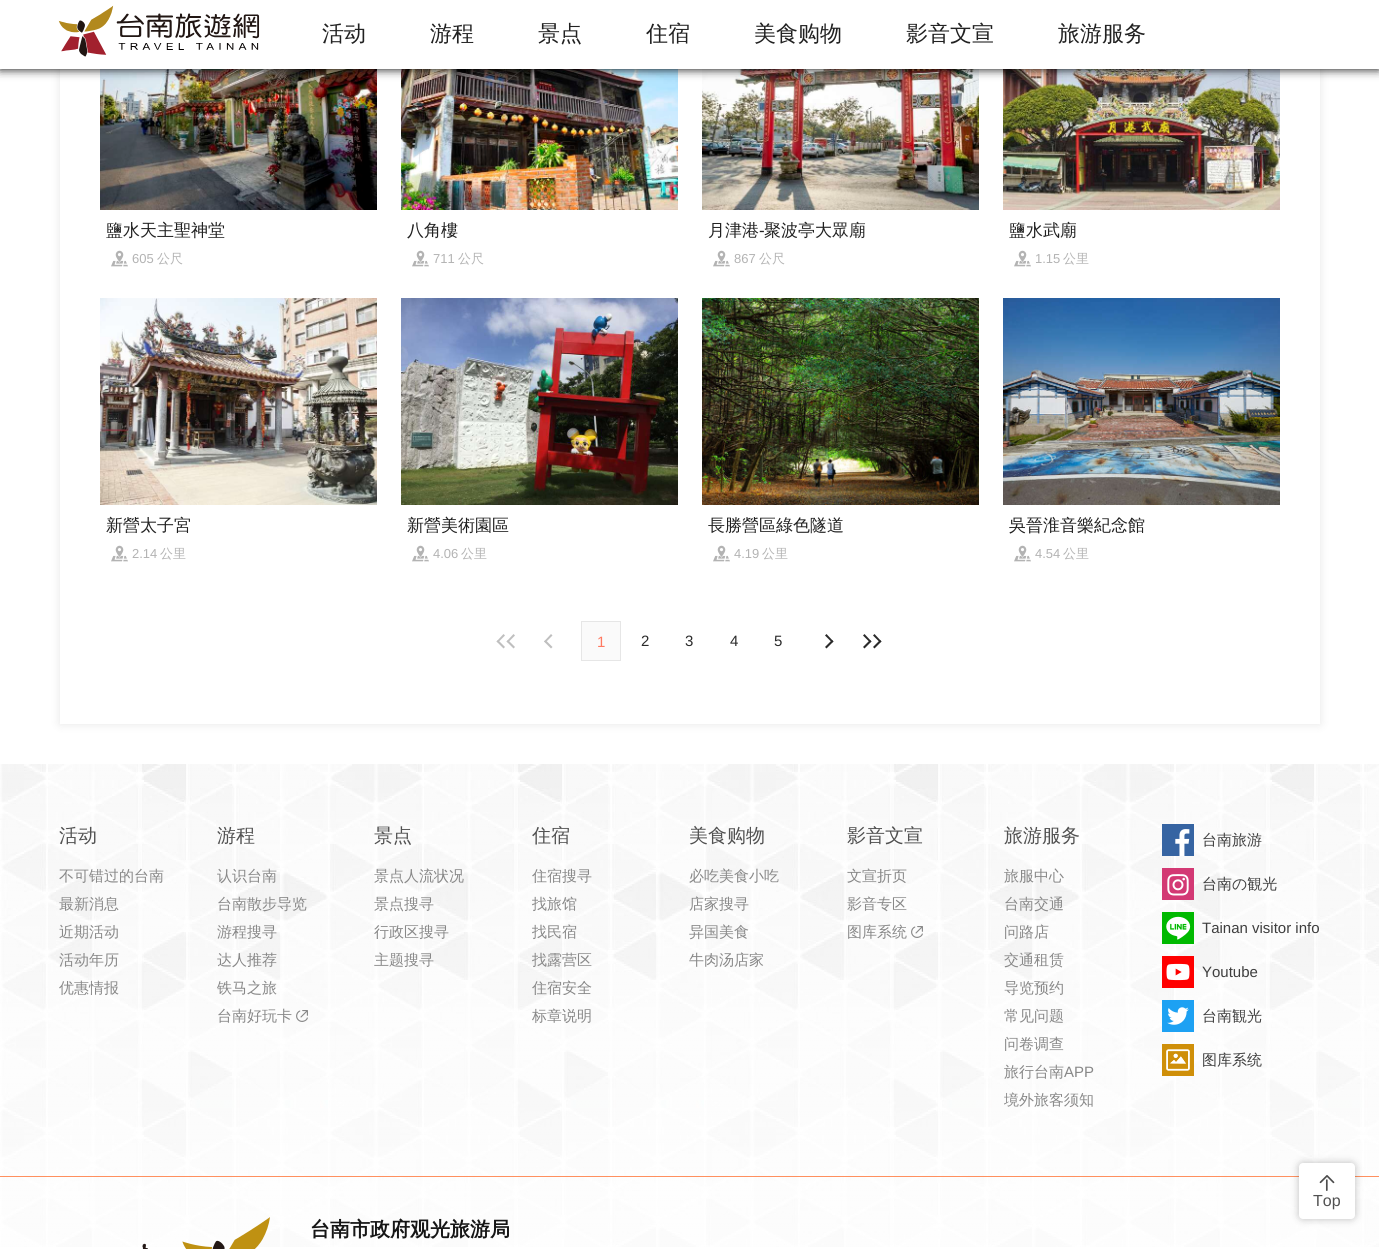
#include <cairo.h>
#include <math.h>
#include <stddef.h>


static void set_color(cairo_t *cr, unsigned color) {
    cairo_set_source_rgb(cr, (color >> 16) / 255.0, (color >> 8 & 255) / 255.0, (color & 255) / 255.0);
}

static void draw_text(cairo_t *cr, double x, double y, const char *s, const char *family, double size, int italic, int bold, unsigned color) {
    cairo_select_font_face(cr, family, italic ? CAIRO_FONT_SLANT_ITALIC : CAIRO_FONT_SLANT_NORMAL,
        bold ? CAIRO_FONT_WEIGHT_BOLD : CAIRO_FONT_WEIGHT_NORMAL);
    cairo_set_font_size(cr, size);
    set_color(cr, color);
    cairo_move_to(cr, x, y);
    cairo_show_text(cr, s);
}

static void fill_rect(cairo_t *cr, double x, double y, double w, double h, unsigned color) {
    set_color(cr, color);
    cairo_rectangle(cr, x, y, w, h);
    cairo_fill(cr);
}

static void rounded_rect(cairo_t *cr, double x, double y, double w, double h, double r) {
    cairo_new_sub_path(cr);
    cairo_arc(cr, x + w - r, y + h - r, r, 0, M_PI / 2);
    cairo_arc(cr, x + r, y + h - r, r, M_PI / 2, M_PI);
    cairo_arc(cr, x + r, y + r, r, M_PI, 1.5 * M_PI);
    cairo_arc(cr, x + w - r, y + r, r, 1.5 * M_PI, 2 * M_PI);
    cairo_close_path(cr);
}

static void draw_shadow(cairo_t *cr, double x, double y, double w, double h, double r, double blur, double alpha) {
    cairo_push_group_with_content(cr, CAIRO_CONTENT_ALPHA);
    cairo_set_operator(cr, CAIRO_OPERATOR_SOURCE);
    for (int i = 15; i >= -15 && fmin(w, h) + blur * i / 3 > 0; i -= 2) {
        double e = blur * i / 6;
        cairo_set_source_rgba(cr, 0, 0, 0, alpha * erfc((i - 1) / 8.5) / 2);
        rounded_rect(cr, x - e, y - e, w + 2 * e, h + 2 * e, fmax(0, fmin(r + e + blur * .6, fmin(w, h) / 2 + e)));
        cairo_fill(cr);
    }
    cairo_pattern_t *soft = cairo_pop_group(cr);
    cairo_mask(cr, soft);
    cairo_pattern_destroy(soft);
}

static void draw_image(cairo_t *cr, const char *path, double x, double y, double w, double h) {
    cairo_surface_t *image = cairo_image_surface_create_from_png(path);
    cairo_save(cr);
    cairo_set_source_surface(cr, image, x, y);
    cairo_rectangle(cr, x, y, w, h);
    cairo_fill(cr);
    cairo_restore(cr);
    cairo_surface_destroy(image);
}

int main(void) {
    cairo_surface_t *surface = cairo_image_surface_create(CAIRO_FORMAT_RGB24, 1379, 1249);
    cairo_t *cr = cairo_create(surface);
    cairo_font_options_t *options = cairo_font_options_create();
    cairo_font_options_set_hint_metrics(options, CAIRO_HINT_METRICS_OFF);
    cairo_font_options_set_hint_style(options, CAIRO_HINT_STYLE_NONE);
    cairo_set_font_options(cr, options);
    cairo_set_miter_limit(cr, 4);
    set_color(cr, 0xFFFFFF);
    cairo_paint(cr);
    cairo_save(cr);
    cairo_set_fill_rule(cr, CAIRO_FILL_RULE_EVEN_ODD);
    cairo_new_path(cr);
    cairo_move_to(cr, 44, 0);
    cairo_line_to(cr, 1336, 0);
    cairo_line_to(cr, 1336, 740);
    cairo_line_to(cr, 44, 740);
    cairo_close_path(cr);
    cairo_move_to(cr, 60, -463);
    cairo_line_to(cr, 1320, -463);
    cairo_line_to(cr, 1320, 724);
    cairo_line_to(cr, 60, 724);
    cairo_close_path(cr);
    cairo_clip(cr);
    set_color(cr, 0x000000);
    draw_shadow(cr, 60, -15, 1260, 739, 0, 5, 0.1);
    cairo_restore(cr);
    draw_image(cr, "assets/img2.png", 100, 69, 277, 141);
    draw_image(cr, "assets/img4.png", 401, 69, 277, 141);
    draw_image(cr, "assets/img5.png", 702, 69, 277, 141);
    draw_image(cr, "assets/img6.png", 1003, 69, 277, 141);
    set_color(cr, 0x000000);
    draw_shadow(cr, 0, -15, 1379, 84, 0, 5, 1);
    fill_rect(cr, 0, 0, 1379, 69, 0xFFFFFF);
    draw_image(cr, "assets/img1.png", 58, 5, 202, 52);
    draw_text(cr, 322, 41, "活动", "WenQuanYi Zen Hei Medium", 22, 0, 0, 0x212121);
    draw_text(cr, 430, 41, "游程", "WenQuanYi Zen Hei Medium", 22, 0, 0, 0x212121);
    draw_text(cr, 538, 41, "景点", "WenQuanYi Zen Hei Medium", 22, 0, 0, 0x212121);
    draw_text(cr, 646, 41, "住宿", "WenQuanYi Zen Hei Medium", 22, 0, 0, 0x212121);
    draw_text(cr, 754, 41, "美食购物", "WenQuanYi Zen Hei Medium", 22, 0, 0, 0x212121);
    draw_text(cr, 906, 41, "影音文宣", "WenQuanYi Zen Hei Medium", 22, 0, 0, 0x212121);
    draw_text(cr, 1058, 41, "旅游服务", "WenQuanYi Zen Hei Medium", 22, 0, 0, 0x212121);
    draw_text(cr, 106, 236, "鹽水天主聖神堂", "WenQuanYi Zen Hei Medium", 17, 0, 0, 0x212121);
    draw_image(cr, "assets/img3.png", 111, 250, 17, 17);
    draw_text(cr, 132, 263, "605", "Liberation Sans", 13, 0, 0, 0xB3B3B3);
    draw_text(cr, 157, 263, "公尺", "WenQuanYi Zen Hei Medium", 13, 0, 0, 0xB3B3B3);
    draw_text(cr, 407, 236, "八角樓", "WenQuanYi Zen Hei Medium", 17, 0, 0, 0x212121);
    draw_image(cr, "assets/img3.png", 412, 250, 17, 17);
    draw_text(cr, 433, 263, "711", "Liberation Sans", 13, 0, 0, 0xB3B3B3);
    draw_text(cr, 458, 263, "公尺", "WenQuanYi Zen Hei Medium", 13, 0, 0, 0xB3B3B3);
    draw_text(cr, 708, 236, "月津港", "WenQuanYi Zen Hei Medium", 17, 0, 0, 0x212121);
    draw_text(cr, 759, 236, "-", "Liberation Sans", 17, 0, 0, 0x212121);
    draw_text(cr, 764, 236, "聚波亭大眾廟", "WenQuanYi Zen Hei Medium", 17, 0, 0, 0x212121);
    draw_image(cr, "assets/img3.png", 713, 250, 17, 17);
    draw_text(cr, 734, 263, "867", "Liberation Sans", 13, 0, 0, 0xB3B3B3);
    draw_text(cr, 759, 263, "公尺", "WenQuanYi Zen Hei Medium", 13, 0, 0, 0xB3B3B3);
    draw_text(cr, 1009, 236, "鹽水武廟", "WenQuanYi Zen Hei Medium", 17, 0, 0, 0x212121);
    draw_image(cr, "assets/img3.png", 1014, 250, 17, 17);
    draw_text(cr, 1035, 263, "1.15", "Liberation Sans", 13, 0, 0, 0xB3B3B3);
    draw_text(cr, 1063, 263, "公里", "WenQuanYi Zen Hei Medium", 13, 0, 0, 0xB3B3B3);
    draw_image(cr, "assets/img7.png", 100, 298, 277, 207);
    draw_text(cr, 106, 531, "新營太子宮", "WenQuanYi Zen Hei Medium", 17, 0, 0, 0x212121);
    draw_image(cr, "assets/img3.png", 111, 545, 17, 17);
    draw_text(cr, 132, 558, "2.14", "Liberation Sans", 13, 0, 0, 0xB3B3B3);
    draw_text(cr, 160, 558, "公里", "WenQuanYi Zen Hei Medium", 13, 0, 0, 0xB3B3B3);
    draw_image(cr, "assets/img8.png", 401, 298, 277, 207);
    draw_text(cr, 407, 531, "新營美術園區", "WenQuanYi Zen Hei Medium", 17, 0, 0, 0x212121);
    draw_image(cr, "assets/img3.png", 412, 545, 17, 17);
    draw_text(cr, 433, 558, "4.06", "Liberation Sans", 13, 0, 0, 0xB3B3B3);
    draw_text(cr, 461, 558, "公里", "WenQuanYi Zen Hei Medium", 13, 0, 0, 0xB3B3B3);
    draw_image(cr, "assets/img9.png", 702, 298, 277, 207);
    draw_text(cr, 708, 531, "長勝營區綠色隧道", "WenQuanYi Zen Hei Medium", 17, 0, 0, 0x212121);
    draw_image(cr, "assets/img3.png", 713, 545, 17, 17);
    draw_text(cr, 734, 558, "4.19", "Liberation Sans", 13, 0, 0, 0xB3B3B3);
    draw_text(cr, 762, 558, "公里", "WenQuanYi Zen Hei Medium", 13, 0, 0, 0xB3B3B3);
    draw_image(cr, "assets/img10.png", 1003, 298, 277, 207);
    draw_text(cr, 1009, 531, "吳晉淮音樂紀念館", "WenQuanYi Zen Hei Medium", 17, 0, 0, 0x212121);
    draw_image(cr, "assets/img3.png", 1014, 545, 17, 17);
    draw_text(cr, 1035, 558, "4.54", "Liberation Sans", 13, 0, 0, 0xB3B3B3);
    draw_text(cr, 1063, 558, "公里", "WenQuanYi Zen Hei Medium", 13, 0, 0, 0xB3B3B3);
    set_color(cr, 0xBFBFBF);
    cairo_new_path(cr);
    cairo_move_to(cr, 505, 647);
    cairo_line_to(cr, 503.5, 648.5);
    cairo_line_to(cr, 496.5, 641.5);
    cairo_line_to(cr, 498, 640);
    cairo_close_path(cr);
    cairo_fill(cr);
    cairo_new_path(cr);
    cairo_move_to(cr, 505, 635.5);
    cairo_line_to(cr, 498, 642.5);
    cairo_line_to(cr, 496.5, 641.5);
    cairo_line_to(cr, 503.5, 634);
    cairo_close_path(cr);
    cairo_move_to(cr, 515, 647);
    cairo_line_to(cr, 513.5, 648.5);
    cairo_line_to(cr, 506.5, 641.5);
    cairo_line_to(cr, 508, 640);
    cairo_close_path(cr);
    cairo_fill(cr);
    cairo_new_path(cr);
    cairo_move_to(cr, 515, 635.5);
    cairo_line_to(cr, 508, 642.5);
    cairo_line_to(cr, 506.5, 641.5);
    cairo_line_to(cr, 513.5, 634);
    cairo_close_path(cr);
    cairo_move_to(cr, 552.5, 647);
    cairo_line_to(cr, 551, 648.5);
    cairo_line_to(cr, 544, 641.5);
    cairo_line_to(cr, 545.5, 640);
    cairo_close_path(cr);
    cairo_fill(cr);
    cairo_new_path(cr);
    cairo_move_to(cr, 552.5, 635.5);
    cairo_line_to(cr, 545.5, 642.5);
    cairo_line_to(cr, 544, 641.5);
    cairo_line_to(cr, 551, 634);
    cairo_close_path(cr);
    cairo_fill(cr);
    set_color(cr, 0xFAFAFA);
    cairo_rectangle(cr, 581.5, 621.5, 39, 39);
    cairo_fill_preserve(cr);
    set_color(cr, 0xE6E6E6);
    cairo_set_line_width(cr, 1);
    cairo_stroke(cr);
    draw_text(cr, 597, 647, "1", "Liberation Sans", 15, 0, 0, 0xFF7960);
    draw_text(cr, 641, 646, "2", "Liberation Sans", 15, 0, 0, 0x2A2A2A);
    draw_text(cr, 685, 646, "3", "Liberation Sans", 15, 0, 0, 0x2A2A2A);
    draw_text(cr, 730, 646, "4", "Liberation Sans", 15, 0, 0, 0x2A2A2A);
    draw_text(cr, 774, 646, "5", "Liberation Sans", 15, 0, 0, 0x2A2A2A);
    cairo_new_path(cr);
    cairo_move_to(cr, 825, 635.5);
    cairo_line_to(cr, 826.5, 634);
    cairo_line_to(cr, 833.5, 641.5);
    cairo_line_to(cr, 832, 642.5);
    cairo_close_path(cr);
    cairo_fill(cr);
    cairo_new_path(cr);
    cairo_move_to(cr, 825, 647);
    cairo_line_to(cr, 832, 640);
    cairo_line_to(cr, 833.5, 641.5);
    cairo_line_to(cr, 826.5, 648.5);
    cairo_close_path(cr);
    cairo_move_to(cr, 863, 635.5);
    cairo_line_to(cr, 864.5, 634);
    cairo_line_to(cr, 871.5, 641.5);
    cairo_line_to(cr, 870, 642.5);
    cairo_close_path(cr);
    cairo_fill(cr);
    cairo_new_path(cr);
    cairo_move_to(cr, 863, 647);
    cairo_line_to(cr, 870, 640);
    cairo_line_to(cr, 871.5, 641.5);
    cairo_line_to(cr, 864.5, 648.5);
    cairo_close_path(cr);
    cairo_move_to(cr, 873, 635.5);
    cairo_line_to(cr, 874.5, 634);
    cairo_line_to(cr, 881.5, 641.5);
    cairo_line_to(cr, 880, 642.5);
    cairo_close_path(cr);
    cairo_fill(cr);
    cairo_new_path(cr);
    cairo_move_to(cr, 873, 647);
    cairo_line_to(cr, 880, 640);
    cairo_line_to(cr, 881.5, 641.5);
    cairo_line_to(cr, 874.5, 648.5);
    cairo_close_path(cr);
    cairo_fill(cr);
    draw_image(cr, "assets/img11.png", 0, 764, 1379, 483);
    fill_rect(cr, 0, 1176, 1379, 1, 0xFF905F);
    draw_text(cr, 59, 842, "活动", "WenQuanYi Zen Hei Medium", 19, 0, 0, 0x515151);
    draw_text(cr, 59, 881, "不可错过的台南", "WenQuanYi Zen Hei Medium", 15, 0, 0, 0x888888);
    draw_text(cr, 59, 909, "最新消息", "WenQuanYi Zen Hei Medium", 15, 0, 0, 0x888888);
    draw_text(cr, 59, 937, "近期活动", "WenQuanYi Zen Hei Medium", 15, 0, 0, 0x888888);
    draw_text(cr, 59, 965, "活动年历", "WenQuanYi Zen Hei Medium", 15, 0, 0, 0x888888);
    draw_text(cr, 59, 993, "优惠情报", "WenQuanYi Zen Hei Medium", 15, 0, 0, 0x888888);
    draw_text(cr, 217, 842, "游程", "WenQuanYi Zen Hei Medium", 19, 0, 0, 0x515151);
    draw_text(cr, 217, 881, "认识台南", "WenQuanYi Zen Hei Medium", 15, 0, 0, 0x888888);
    draw_text(cr, 217, 909, "台南散步导览", "WenQuanYi Zen Hei Medium", 15, 0, 0, 0x888888);
    draw_text(cr, 217, 937, "游程搜寻", "WenQuanYi Zen Hei Medium", 15, 0, 0, 0x888888);
    draw_text(cr, 217, 965, "达人推荐", "WenQuanYi Zen Hei Medium", 15, 0, 0, 0x888888);
    draw_text(cr, 217, 993, "铁马之旅", "WenQuanYi Zen Hei Medium", 15, 0, 0, 0x888888);
    draw_text(cr, 217, 1021, "台南好玩卡", "WenQuanYi Zen Hei Medium", 15, 0, 0, 0x888888);
    draw_image(cr, "assets/img12.png", 296, 1010, 12, 12);
    draw_text(cr, 374, 842, "景点", "WenQuanYi Zen Hei Medium", 19, 0, 0, 0x515151);
    draw_text(cr, 374, 881, "景点人流状况", "WenQuanYi Zen Hei Medium", 15, 0, 0, 0x888888);
    draw_text(cr, 374, 909, "景点搜寻", "WenQuanYi Zen Hei Medium", 15, 0, 0, 0x888888);
    draw_text(cr, 374, 937, "行政区搜寻", "WenQuanYi Zen Hei Medium", 15, 0, 0, 0x888888);
    draw_text(cr, 374, 965, "主题搜寻", "WenQuanYi Zen Hei Medium", 15, 0, 0, 0x888888);
    draw_text(cr, 532, 842, "住宿", "WenQuanYi Zen Hei Medium", 19, 0, 0, 0x515151);
    draw_text(cr, 532, 881, "住宿搜寻", "WenQuanYi Zen Hei Medium", 15, 0, 0, 0x888888);
    draw_text(cr, 532, 909, "找旅馆", "WenQuanYi Zen Hei Medium", 15, 0, 0, 0x888888);
    draw_text(cr, 532, 937, "找民宿", "WenQuanYi Zen Hei Medium", 15, 0, 0, 0x888888);
    draw_text(cr, 532, 965, "找露营区", "WenQuanYi Zen Hei Medium", 15, 0, 0, 0x888888);
    draw_text(cr, 532, 993, "住宿安全", "WenQuanYi Zen Hei Medium", 15, 0, 0, 0x888888);
    draw_text(cr, 532, 1021, "标章说明", "WenQuanYi Zen Hei Medium", 15, 0, 0, 0x888888);
    draw_text(cr, 689, 842, "美食购物", "WenQuanYi Zen Hei Medium", 19, 0, 0, 0x515151);
    draw_text(cr, 689, 881, "必吃美食小吃", "WenQuanYi Zen Hei Medium", 15, 0, 0, 0x888888);
    draw_text(cr, 689, 909, "店家搜寻", "WenQuanYi Zen Hei Medium", 15, 0, 0, 0x888888);
    draw_text(cr, 689, 937, "异国美食", "WenQuanYi Zen Hei Medium", 15, 0, 0, 0x888888);
    draw_text(cr, 689, 965, "牛肉汤店家", "WenQuanYi Zen Hei Medium", 15, 0, 0, 0x888888);
    draw_text(cr, 847, 842, "影音文宣", "WenQuanYi Zen Hei Medium", 19, 0, 0, 0x515151);
    draw_text(cr, 847, 881, "文宣折页", "WenQuanYi Zen Hei Medium", 15, 0, 0, 0x888888);
    draw_text(cr, 847, 909, "影音专区", "WenQuanYi Zen Hei Medium", 15, 0, 0, 0x888888);
    draw_text(cr, 847, 937, "图库系统", "WenQuanYi Zen Hei Medium", 15, 0, 0, 0x888888);
    draw_image(cr, "assets/img13.png", 911, 926, 12, 12);
    draw_text(cr, 1004, 842, "旅游服务", "WenQuanYi Zen Hei Medium", 19, 0, 0, 0x515151);
    draw_text(cr, 1004, 881, "旅服中心", "WenQuanYi Zen Hei Medium", 15, 0, 0, 0x888888);
    draw_text(cr, 1004, 909, "台南交通", "WenQuanYi Zen Hei Medium", 15, 0, 0, 0x888888);
    draw_text(cr, 1004, 937, "问路店", "WenQuanYi Zen Hei Medium", 15, 0, 0, 0x888888);
    draw_text(cr, 1004, 965, "交通租赁", "WenQuanYi Zen Hei Medium", 15, 0, 0, 0x888888);
    draw_text(cr, 1004, 993, "导览预约", "WenQuanYi Zen Hei Medium", 15, 0, 0, 0x888888);
    draw_text(cr, 1004, 1021, "常见问题", "WenQuanYi Zen Hei Medium", 15, 0, 0, 0x888888);
    draw_text(cr, 1004, 1049, "问卷调查", "WenQuanYi Zen Hei Medium", 15, 0, 0, 0x888888);
    draw_text(cr, 1004, 1077, "旅行台南", "WenQuanYi Zen Hei Medium", 15, 0, 0, 0x888888);
    draw_text(cr, 1064, 1077, "APP", "Liberation Sans", 15, 0, 0, 0x888888);
    draw_text(cr, 1004, 1105, "境外旅客须知", "WenQuanYi Zen Hei Medium", 15, 0, 0, 0x888888);
    draw_image(cr, "assets/img14.png", 1162, 824, 32, 32);
    draw_text(cr, 1202, 845, "台南旅游", "WenQuanYi Zen Hei Medium", 15, 0, 0, 0x3E3E3E);
    draw_image(cr, "assets/img15.png", 1162, 868, 32, 32);
    draw_text(cr, 1202, 889, "台南の観光", "WenQuanYi Zen Hei Medium", 15, 0, 0, 0x3E3E3E);
    draw_image(cr, "assets/img16.png", 1162, 912, 32, 32);
    draw_text(cr, 1202, 933, "Tainan visitor info", "Liberation Sans", 15, 0, 0, 0x3E3E3E);
    draw_image(cr, "assets/img17.png", 1162, 956, 32, 32);
    draw_text(cr, 1202, 977, "Youtube", "Liberation Sans", 15, 0, 0, 0x3E3E3E);
    draw_image(cr, "assets/img18.png", 1162, 1000, 32, 32);
    draw_text(cr, 1202, 1021, "台南観光", "WenQuanYi Zen Hei Medium", 15, 0, 0, 0x3E3E3E);
    draw_image(cr, "assets/img19.png", 1162, 1044, 32, 32);
    draw_text(cr, 1202, 1065, "图库系统", "WenQuanYi Zen Hei Medium", 15, 0, 0, 0x3E3E3E);
    draw_image(cr, "assets/img20.png", 142, 1217, 128, 32);
    draw_text(cr, 310, 1236, "台南市政府观光旅游局", "WenQuanYi Zen Hei", 20, 0, 1, 0x161616);
    set_color(cr, 0x000000);
    draw_shadow(cr, 1299, 1163, 56, 56, 4, 4, 0.25);
    set_color(cr, 0xFFFFFF);
    rounded_rect(cr, 1299, 1163, 56, 56, 4);
    cairo_fill(cr);
    draw_image(cr, "assets/img21.png", 1319, 1175, 16, 16);
    draw_text(cr, 1313, 1206, "Top", "Liberation Sans", 16, 0, 0, 0x515151);
    cairo_surface_write_to_png(surface, "output.png");
    cairo_font_options_destroy(options);
    cairo_destroy(cr);
    cairo_surface_destroy(surface);
    return 0;
}
